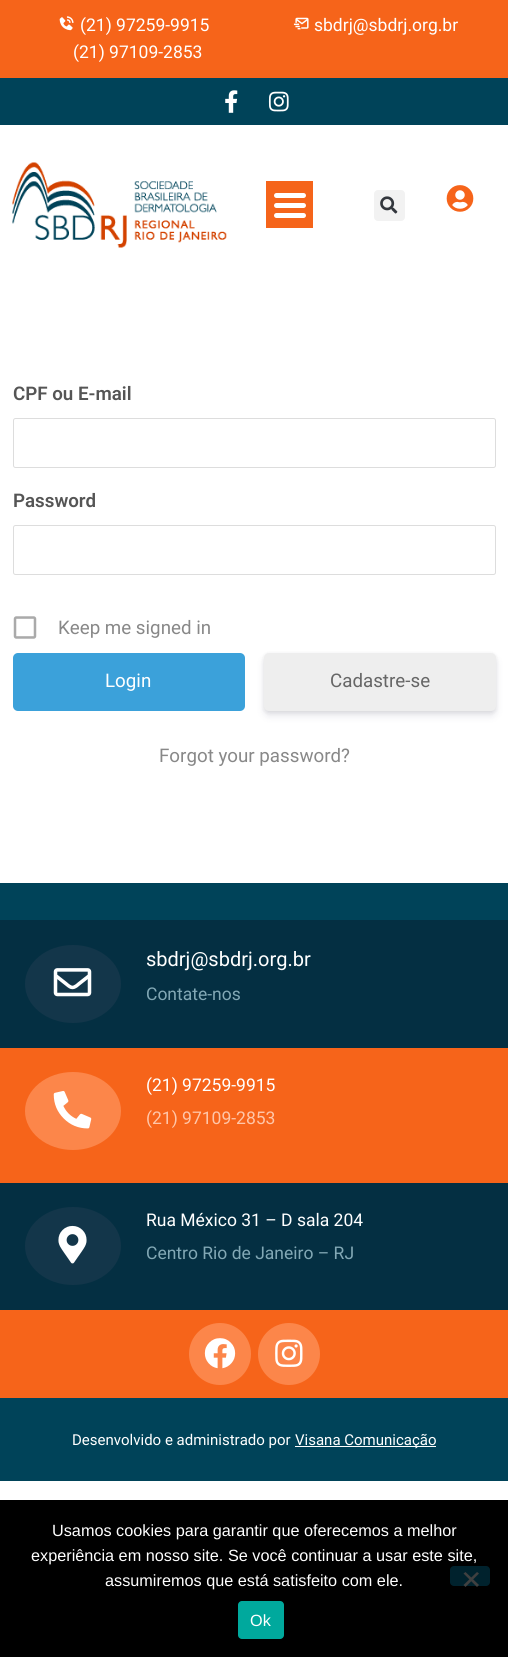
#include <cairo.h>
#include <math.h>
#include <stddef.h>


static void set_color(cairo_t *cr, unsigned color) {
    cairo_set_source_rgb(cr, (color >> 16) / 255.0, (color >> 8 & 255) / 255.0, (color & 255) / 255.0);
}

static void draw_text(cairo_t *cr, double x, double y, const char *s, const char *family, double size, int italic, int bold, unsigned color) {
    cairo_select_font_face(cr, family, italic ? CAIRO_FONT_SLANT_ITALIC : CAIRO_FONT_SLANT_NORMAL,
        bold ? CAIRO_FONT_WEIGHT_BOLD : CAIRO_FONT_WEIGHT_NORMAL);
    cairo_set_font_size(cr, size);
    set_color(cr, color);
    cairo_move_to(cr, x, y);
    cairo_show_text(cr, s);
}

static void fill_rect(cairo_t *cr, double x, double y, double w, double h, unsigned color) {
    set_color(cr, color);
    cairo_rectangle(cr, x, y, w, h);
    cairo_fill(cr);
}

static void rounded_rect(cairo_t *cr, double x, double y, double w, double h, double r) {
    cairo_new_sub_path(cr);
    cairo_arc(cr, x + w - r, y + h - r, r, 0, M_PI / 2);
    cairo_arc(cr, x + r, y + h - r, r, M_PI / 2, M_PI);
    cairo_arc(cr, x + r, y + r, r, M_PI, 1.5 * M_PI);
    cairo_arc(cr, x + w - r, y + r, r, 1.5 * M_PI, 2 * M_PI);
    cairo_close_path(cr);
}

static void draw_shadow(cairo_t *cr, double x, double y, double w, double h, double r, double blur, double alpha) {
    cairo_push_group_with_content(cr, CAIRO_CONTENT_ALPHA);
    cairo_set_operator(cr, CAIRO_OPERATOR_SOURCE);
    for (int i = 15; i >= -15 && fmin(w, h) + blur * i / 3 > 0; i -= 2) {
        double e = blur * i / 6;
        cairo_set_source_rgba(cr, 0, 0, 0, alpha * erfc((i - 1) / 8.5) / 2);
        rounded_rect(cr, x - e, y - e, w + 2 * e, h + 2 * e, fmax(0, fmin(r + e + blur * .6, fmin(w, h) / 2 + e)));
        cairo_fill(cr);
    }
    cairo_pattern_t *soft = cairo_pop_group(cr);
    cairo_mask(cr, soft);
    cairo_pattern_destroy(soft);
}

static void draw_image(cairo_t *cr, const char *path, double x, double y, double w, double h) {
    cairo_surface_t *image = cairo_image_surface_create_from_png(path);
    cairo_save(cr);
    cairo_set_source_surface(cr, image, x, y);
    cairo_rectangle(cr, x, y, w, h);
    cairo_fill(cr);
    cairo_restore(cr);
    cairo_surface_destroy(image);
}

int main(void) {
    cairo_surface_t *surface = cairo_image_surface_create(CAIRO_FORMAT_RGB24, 508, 1657);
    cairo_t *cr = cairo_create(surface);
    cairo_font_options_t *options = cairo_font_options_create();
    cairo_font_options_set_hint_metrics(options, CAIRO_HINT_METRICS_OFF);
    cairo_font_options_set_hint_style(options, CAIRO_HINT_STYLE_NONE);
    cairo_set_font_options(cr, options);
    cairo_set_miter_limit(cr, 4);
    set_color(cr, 0xFFFFFF);
    cairo_paint(cr);
    fill_rect(cr, 0, 78, 508, 47, 0x004359);
    fill_rect(cr, 0, 0, 508, 78, 0xF6641A);
    draw_image(cr, "assets/img1.png", 59, 16, 15, 15);
    draw_text(cr, 80, 31, "(21) 97259-9915", "Roboto", 17.5, 0, 0, 0xFFFFFF);
    draw_text(cr, 73, 58, "(21) 97109-2853", "Roboto", 17.5, 0, 0, 0xFFFFFF);
    draw_image(cr, "assets/img2.png", 293, 17, 16, 13);
    draw_text(cr, 314, 31, "sbdrj@sbdrj.org.br", "Roboto", 17.5, 0, 0, 0xFFFFFF);
    draw_image(cr, "assets/img3.png", 225, 90, 13, 23);
    draw_image(cr, "assets/img4.png", 268, 91, 21, 21);
    draw_image(cr, "assets/img5.png", 12, 162, 215, 86);
    fill_rect(cr, 266, 181, 47, 47, 0xF5641A);
    set_color(cr, 0xFFFFFF);
    rounded_rect(cr, 274, 203, 32, 5, 2.5);
    cairo_fill(cr);
    rounded_rect(cr, 274, 193, 32, 5, 2.5);
    cairo_fill(cr);
    rounded_rect(cr, 274, 213, 32, 5, 2.5);
    cairo_fill(cr);
    set_color(cr, 0xF2F2F2);
    rounded_rect(cr, 374, 190, 31, 31, 4);
    cairo_fill(cr);
    draw_image(cr, "assets/img6.png", 380, 196, 18, 18);
    draw_image(cr, "assets/img7.png", 446, 185, 28, 27);
    draw_text(cr, 13, 400, "CPF ou E-mail", "Roboto SemiBold", 18.75, 0, 0, 0x555555);
    rounded_rect(cr, 13.5, 418.5, 482, 49, 2);
    set_color(cr, 0xDDDDDD);
    cairo_set_line_width(cr, 1);
    cairo_stroke(cr);
    draw_text(cr, 13, 507, "Password", "Roboto SemiBold", 18.75, 0, 0, 0x555555);
    rounded_rect(cr, 13.5, 525.5, 482, 49, 2);
    set_color(cr, 0xDDDDDD);
    cairo_stroke(cr);
    draw_image(cr, "assets/img8.png", 13, 616, 24, 23);
    draw_text(cr, 58, 634, "Keep me signed in", "Roboto", 18.75, 0, 0, 0x888888);
    set_color(cr, 0x3BA1DA);
    rounded_rect(cr, 13, 653, 232, 58, 5);
    cairo_fill(cr);
    draw_text(cr, 105, 687, "Login", "Roboto", 18.75, 0, 0, 0xFFFFFF);
    set_color(cr, 0x000000);
    draw_shadow(cr, 264, 654, 232, 59, 5, 2, 0.08);
    set_color(cr, 0x32325D);
    draw_shadow(cr, 264, 658, 232, 58, 5, 4, 0.11);
    set_color(cr, 0xEEEEEE);
    rounded_rect(cr, 264, 653, 232, 58, 5);
    cairo_fill(cr);
    draw_text(cr, 330, 687, "Cadastre-se", "Roboto", 18.75, 0, 0, 0x666666);
    draw_text(cr, 159, 762, "Forgot your password?", "Roboto", 18.75, 0, 0, 0x888888);
    fill_rect(cr, 0, 883, 508, 37, 0x004359);
    fill_rect(cr, 0, 920, 508, 128, 0x042F42);
    set_color(cr, 0x13364A);
    cairo_new_path(cr);
    cairo_move_to(cr, 73, 945);
    cairo_curve_to(cr, 99.5, 945, 121, 962.5, 121, 984);
    cairo_curve_to(cr, 121, 1005.5, 99.5, 1023, 73, 1023);
    cairo_curve_to(cr, 46.5, 1023, 25, 1005.5, 25, 984);
    cairo_curve_to(cr, 25, 962.5, 46.5, 945, 73, 945);
    cairo_close_path(cr);
    cairo_fill(cr);
    draw_image(cr, "assets/img9.png", 53, 968, 39, 29);
    draw_text(cr, 146, 966, "sbdrj@sbdrj.org.br", "Roboto", 20, 0, 0, 0xFFFFFF);
    draw_text(cr, 146, 1000, "Contate-nos", "Roboto", 17.5, 0, 0, 0x82A8B5);
    fill_rect(cr, 0, 1048, 508, 135, 0xF6641A);
    set_color(cr, 0xFC864A);
    cairo_new_path(cr);
    cairo_move_to(cr, 73, 1072);
    cairo_curve_to(cr, 99.5, 1072, 121, 1089.5, 121, 1111);
    cairo_curve_to(cr, 121, 1132.5, 99.5, 1150, 73, 1150);
    cairo_curve_to(cr, 46.5, 1150, 25, 1132.5, 25, 1111);
    cairo_curve_to(cr, 25, 1089.5, 46.5, 1072, 73, 1072);
    cairo_close_path(cr);
    cairo_fill(cr);
    draw_image(cr, "assets/img10.png", 53, 1090, 39, 39);
    draw_text(cr, 146, 1091, "(21) 97259-9915", "Roboto", 17.5, 0, 0, 0xFFFFFF);
    draw_text(cr, 146, 1124, "(21) 97109-2853", "Roboto", 17.5, 0, 0, 0xFFC6A9);
    fill_rect(cr, 0, 1183, 508, 127, 0x042F42);
    set_color(cr, 0x13364A);
    cairo_new_path(cr);
    cairo_move_to(cr, 73, 1207);
    cairo_curve_to(cr, 99.5, 1207, 121, 1224.5, 121, 1246);
    cairo_curve_to(cr, 121, 1267.5, 99.5, 1285, 73, 1285);
    cairo_curve_to(cr, 46.5, 1285, 25, 1267.5, 25, 1246);
    cairo_curve_to(cr, 25, 1224.5, 46.5, 1207, 73, 1207);
    cairo_close_path(cr);
    cairo_fill(cr);
    draw_image(cr, "assets/img11.png", 58, 1225, 29, 39);
    draw_text(cr, 146, 1226, "Rua México 31 – D sala 204", "Roboto", 17.5, 0, 0, 0xFFFFFF);
    draw_text(cr, 146, 1259, "Centro Rio de Janeiro – RJ", "Roboto", 17.5, 0, 0, 0x82A8B5);
    fill_rect(cr, 0, 1310, 508, 88, 0xF6641A);
    set_color(cr, 0xFC864A);
    cairo_new_path(cr);
    cairo_arc(cr, 220, 1354, 31, 0, 2 * M_PI);
    cairo_fill(cr);
    draw_image(cr, "assets/img12.png", 204, 1338, 32, 31);
    cairo_arc(cr, 289, 1354, 31, 0, 2 * M_PI);
    cairo_fill(cr);
    draw_image(cr, "assets/img13.png", 275, 1339, 28, 28);
    fill_rect(cr, 0, 1398, 508, 83, 0x004359);
    draw_text(cr, 72, 1445, "Desenvolvido e administrado por", "Roboto", 15, 0, 0, 0xFFFFFF);
    fill_rect(cr, 295, 1446, 141, 1, 0xFFFFFF);
    draw_text(cr, 295, 1445, "Visana Comunicação", "Roboto", 15, 0, 0, 0xFFFFFF);
    fill_rect(cr, 0, 1500, 508, 157, 0x000000);
    draw_text(cr, 52, 1536, "Usamos cookies para garantir que oferecemos a melhor", "Liberation Sans", 16.25, 0, 0, 0xFFFFFF);
    draw_text(cr, 31, 1561, "experiência em nosso site. Se você continuar a usar este site,", "Liberation Sans", 16.25, 0, 0, 0xFFFFFF);
    draw_text(cr, 105, 1586, "assumiremos que está satisfeito com ele.", "Liberation Sans", 16.25, 0, 0, 0xFFFFFF);
    set_color(cr, 0x00222D);
    rounded_rect(cr, 450, 1566, 40, 20, 4);
    cairo_fill(cr);
    set_color(cr, 0x404040);
    cairo_new_path(cr);
    cairo_move_to(cr, 477, 1572);
    cairo_line_to(cr, 479, 1573.5);
    cairo_line_to(cr, 465.5, 1587);
    cairo_line_to(cr, 463.5, 1585);
    cairo_close_path(cr);
    cairo_fill(cr);
    cairo_new_path(cr);
    cairo_move_to(cr, 463.5, 1573.5);
    cairo_line_to(cr, 465.5, 1572);
    cairo_line_to(cr, 479, 1585);
    cairo_line_to(cr, 477, 1587);
    cairo_close_path(cr);
    cairo_fill(cr);
    set_color(cr, 0x00A99D);
    rounded_rect(cr, 238, 1601, 46, 38, 4);
    cairo_fill(cr);
    draw_text(cr, 250, 1626, "Ok", "Liberation Sans", 16.25, 0, 0, 0xFFFFFF);
    cairo_surface_write_to_png(surface, "output.png");
    cairo_font_options_destroy(options);
    cairo_destroy(cr);
    cairo_surface_destroy(surface);
    return 0;
}
